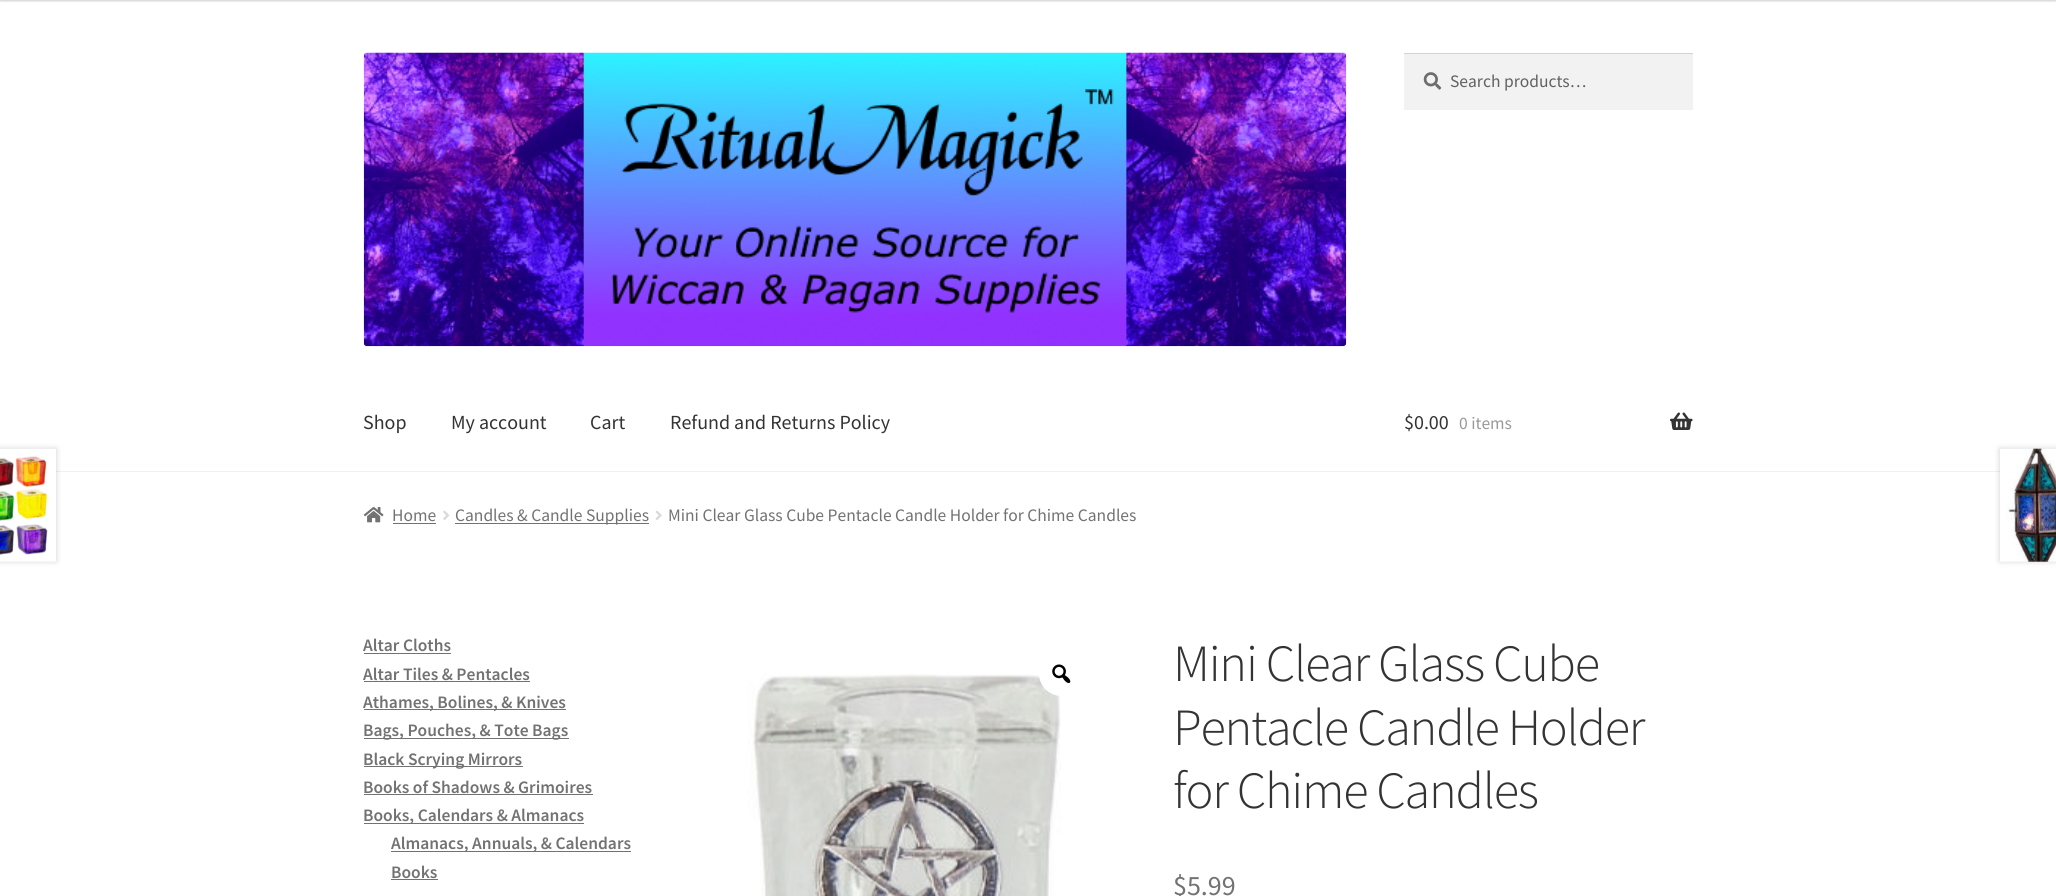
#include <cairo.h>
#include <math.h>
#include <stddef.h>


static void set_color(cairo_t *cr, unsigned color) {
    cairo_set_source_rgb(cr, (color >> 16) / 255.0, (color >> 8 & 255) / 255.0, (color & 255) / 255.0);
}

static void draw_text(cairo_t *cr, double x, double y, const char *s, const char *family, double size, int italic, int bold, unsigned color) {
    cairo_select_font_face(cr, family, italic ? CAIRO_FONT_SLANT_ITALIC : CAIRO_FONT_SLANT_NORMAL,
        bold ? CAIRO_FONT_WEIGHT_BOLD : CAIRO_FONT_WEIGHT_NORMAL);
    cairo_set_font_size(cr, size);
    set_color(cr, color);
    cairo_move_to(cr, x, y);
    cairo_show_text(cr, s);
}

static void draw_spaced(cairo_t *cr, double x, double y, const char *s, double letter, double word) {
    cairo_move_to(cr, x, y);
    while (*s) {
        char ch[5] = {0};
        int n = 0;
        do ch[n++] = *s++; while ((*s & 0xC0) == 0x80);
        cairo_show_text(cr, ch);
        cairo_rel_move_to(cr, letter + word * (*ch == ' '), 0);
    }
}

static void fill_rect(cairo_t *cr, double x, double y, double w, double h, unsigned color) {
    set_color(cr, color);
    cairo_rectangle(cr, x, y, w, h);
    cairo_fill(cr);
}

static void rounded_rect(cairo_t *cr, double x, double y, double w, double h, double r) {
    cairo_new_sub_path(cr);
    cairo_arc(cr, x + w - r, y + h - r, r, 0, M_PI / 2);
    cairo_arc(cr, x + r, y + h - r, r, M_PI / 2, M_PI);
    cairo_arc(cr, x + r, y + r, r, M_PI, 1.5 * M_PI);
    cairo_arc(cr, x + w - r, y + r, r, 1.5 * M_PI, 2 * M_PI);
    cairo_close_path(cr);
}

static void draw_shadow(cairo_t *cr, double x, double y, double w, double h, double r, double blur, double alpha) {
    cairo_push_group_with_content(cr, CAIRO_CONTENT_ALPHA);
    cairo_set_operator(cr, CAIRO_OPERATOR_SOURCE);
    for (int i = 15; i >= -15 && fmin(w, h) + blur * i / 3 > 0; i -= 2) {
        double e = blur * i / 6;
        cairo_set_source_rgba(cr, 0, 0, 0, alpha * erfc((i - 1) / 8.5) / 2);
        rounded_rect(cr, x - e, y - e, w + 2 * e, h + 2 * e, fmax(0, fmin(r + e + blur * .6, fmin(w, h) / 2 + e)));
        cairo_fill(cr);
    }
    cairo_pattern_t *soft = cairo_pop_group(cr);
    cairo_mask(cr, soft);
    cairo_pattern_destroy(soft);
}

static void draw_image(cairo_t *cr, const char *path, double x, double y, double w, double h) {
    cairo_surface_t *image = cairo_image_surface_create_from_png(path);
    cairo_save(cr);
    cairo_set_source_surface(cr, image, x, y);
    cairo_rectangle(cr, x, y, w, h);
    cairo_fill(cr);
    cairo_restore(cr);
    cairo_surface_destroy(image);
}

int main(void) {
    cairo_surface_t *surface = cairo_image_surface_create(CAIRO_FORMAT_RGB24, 2056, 896);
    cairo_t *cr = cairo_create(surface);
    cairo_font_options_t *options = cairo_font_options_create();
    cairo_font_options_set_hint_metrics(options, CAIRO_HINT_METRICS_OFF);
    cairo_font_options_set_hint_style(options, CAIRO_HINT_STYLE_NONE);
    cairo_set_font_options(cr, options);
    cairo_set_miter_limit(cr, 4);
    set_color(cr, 0xFFFFFF);
    cairo_paint(cr);
    set_color(cr, 0x000000);
    draw_shadow(cr, 0, -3, 2056, 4, 0, 1, 0.2);
    fill_rect(cr, 56, 471, 1944, 1, 0xF0F0F0);
    draw_image(cr, "assets/img1.png", 363, 52, 984, 295);
    fill_rect(cr, 1404, 54, 289, 56, 0xF2F2F2);
    draw_image(cr, "assets/img2.png", 1423, 72, 19, 18);
    fill_rect(cr, 1404, 53, 289, 1, 0xD4D4D4);
    draw_text(cr, 1450, 87, "Search products…", "Source Sans Pro", 17.5, 0, 0, 0x616161);
    draw_text(cr, 363, 429, "Shop", "Source Sans Pro", 20, 0, 0, 0x333333);
    draw_text(cr, 451, 429, "My account", "Source Sans Pro", 20, 0, 0, 0x333333);
    draw_text(cr, 590, 429, "Cart", "Source Sans Pro", 20, 0, 0, 0x333333);
    draw_text(cr, 670, 429, "Refund and Returns Policy", "Source Sans Pro", 20, 0, 0, 0x333333);
    draw_text(cr, 1404, 429, "$0.00", "Source Sans Pro", 20, 0, 0, 0x333333);
    draw_text(cr, 1459, 429, "0 items", "Source Sans Pro", 17.5, 0, 0, 0x999999);
    draw_image(cr, "assets/img3.png", 1670, 412, 23, 18);
    draw_image(cr, "assets/img4.png", 363, 507, 21, 16);
    draw_text(cr, 392, 521, "Home", "Source Sans Pro", 17.5, 0, 0, 0x727272);
    fill_rect(cr, 393, 523, 43, 1, 0x727272);
    draw_image(cr, "assets/img5.png", 443, 510, 7, 10);
    fill_rect(cr, 455, 523, 194, 1, 0x727272);
    draw_text(cr, 455, 521, "Candles & Candle Supplies", "Source Sans Pro", 17.5, 0, 0, 0x727272);
    draw_image(cr, "assets/img6.png", 655, 510, 7, 10);
    draw_text(cr, 668, 521, "Mini Clear Glass Cube Pentacle Candle Holder for Chime Candles", "Source Sans Pro", 17.5, 0, 0, 0x727272);
    draw_text(cr, 363, 651, "Altar Cloths", "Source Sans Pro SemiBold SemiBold", 17.5, 0, 0, 0x727272);
    fill_rect(cr, 364, 653, 87, 1, 0x727272);
    draw_text(cr, 363, 680, "Altar Tiles & Pentacles", "Source Sans Pro SemiBold SemiBold", 17.5, 0, 0, 0x727272);
    fill_rect(cr, 364, 681, 166, 1, 0x727272);
    fill_rect(cr, 364, 709, 202, 1, 0x727272);
    draw_text(cr, 363, 708, "Athames, Bolines, & Knives", "Source Sans Pro SemiBold SemiBold", 17.5, 0, 0, 0x727272);
    fill_rect(cr, 364, 738, 205, 1, 0x727272);
    draw_text(cr, 363, 736, "Bags, Pouches, & Tote Bags", "Source Sans Pro SemiBold SemiBold", 17.5, 0, 0, 0x727272);
    fill_rect(cr, 364, 766, 159, 1, 0x727272);
    draw_text(cr, 363, 765, "Black Scrying Mirrors", "Source Sans Pro SemiBold SemiBold", 17.5, 0, 0, 0x727272);
    draw_text(cr, 363, 793, "Books of Shadows & Grimoires", "Source Sans Pro SemiBold SemiBold", 17.5, 0, 0, 0x727272);
    fill_rect(cr, 364, 794, 229, 1, 0x727272);
    fill_rect(cr, 364, 823, 220, 1, 0x727272);
    draw_text(cr, 363, 821, "Books, Calendars & Almanacs", "Source Sans Pro SemiBold SemiBold", 17.5, 0, 0, 0x727272);
    fill_rect(cr, 391, 851, 240, 1, 0x727272);
    draw_text(cr, 391, 849, "Almanacs, Annuals, & Calendars", "Source Sans Pro SemiBold SemiBold", 17.5, 0, 0, 0x727272);
    draw_text(cr, 391, 878, "Books", "Source Sans Pro SemiBold SemiBold", 17.5, 0, 0, 0x727272);
    fill_rect(cr, 391, 879, 47, 1, 0x727272);
    set_color(cr, 0x000000);
    draw_shadow(cr, -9, 449, 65, 112, 0, 3, 0.2);
    draw_image(cr, "assets/img7.png", 0, 448, 56, 114);
    draw_shadow(cr, 2000, 449, 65, 112, 0, 3, 0.2);
    draw_image(cr, "assets/img8.png", 2000, 448, 56, 114);
    draw_image(cr, "assets/img9.png", 748, 674, 313, 222);
    set_color(cr, 0xFFFFFF);
    cairo_arc(cr, 1061.5, 673.5, 22.5, 0, 2 * M_PI);
    cairo_fill(cr);
    draw_image(cr, "assets/img10.png", 1052, 664, 19, 19);
    cairo_select_font_face(cr, "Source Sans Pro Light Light", CAIRO_FONT_SLANT_NORMAL, CAIRO_FONT_WEIGHT_NORMAL);
    cairo_set_font_size(cr, 52.25);
    set_color(cr, 0x333333);
    draw_spaced(cr, 1173, 681, "Mini Clear Glass Cube", -1.25, 0);
    draw_spaced(cr, 1173, 745, "Pentacle Candle Holder", -1.25, 0);
    draw_spaced(cr, 1173, 808, "for Chime Candles", -1.25, 0);
    draw_text(cr, 1173, 895, "$5.99", "Source Sans Pro", 28, 0, 0, 0x727272);
    cairo_surface_write_to_png(surface, "output.png");
    cairo_font_options_destroy(options);
    cairo_destroy(cr);
    cairo_surface_destroy(surface);
    return 0;
}
